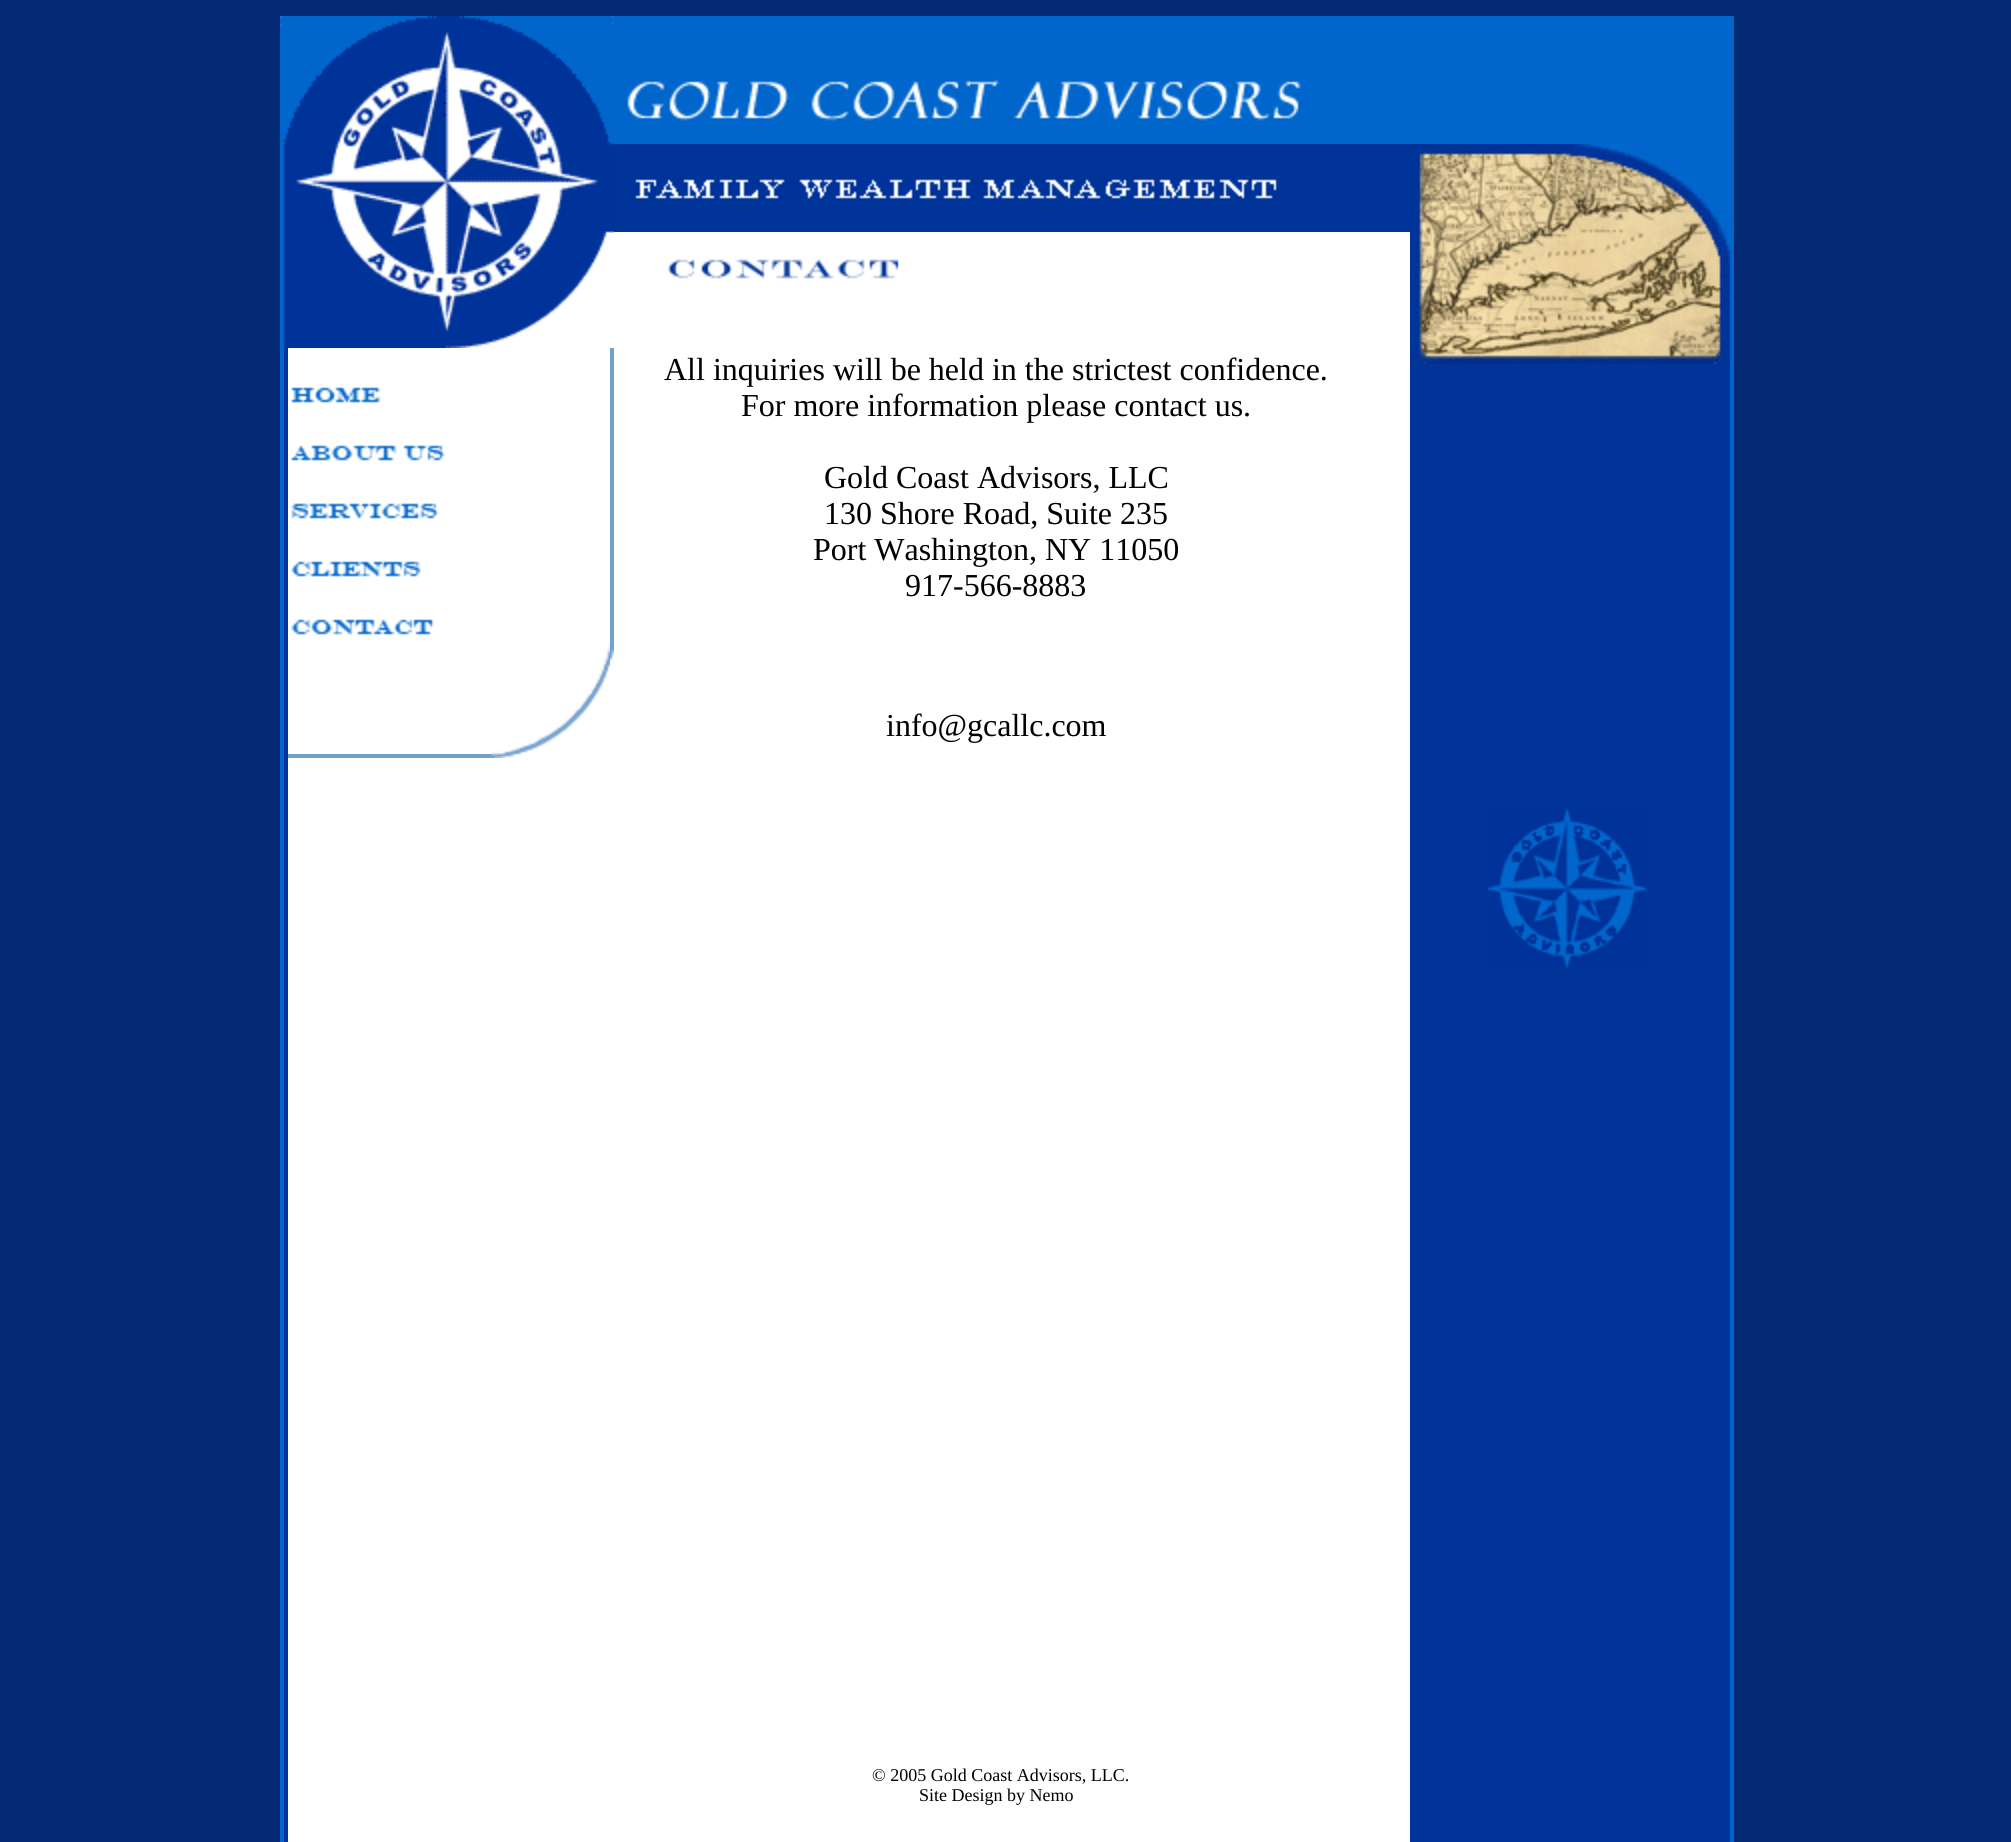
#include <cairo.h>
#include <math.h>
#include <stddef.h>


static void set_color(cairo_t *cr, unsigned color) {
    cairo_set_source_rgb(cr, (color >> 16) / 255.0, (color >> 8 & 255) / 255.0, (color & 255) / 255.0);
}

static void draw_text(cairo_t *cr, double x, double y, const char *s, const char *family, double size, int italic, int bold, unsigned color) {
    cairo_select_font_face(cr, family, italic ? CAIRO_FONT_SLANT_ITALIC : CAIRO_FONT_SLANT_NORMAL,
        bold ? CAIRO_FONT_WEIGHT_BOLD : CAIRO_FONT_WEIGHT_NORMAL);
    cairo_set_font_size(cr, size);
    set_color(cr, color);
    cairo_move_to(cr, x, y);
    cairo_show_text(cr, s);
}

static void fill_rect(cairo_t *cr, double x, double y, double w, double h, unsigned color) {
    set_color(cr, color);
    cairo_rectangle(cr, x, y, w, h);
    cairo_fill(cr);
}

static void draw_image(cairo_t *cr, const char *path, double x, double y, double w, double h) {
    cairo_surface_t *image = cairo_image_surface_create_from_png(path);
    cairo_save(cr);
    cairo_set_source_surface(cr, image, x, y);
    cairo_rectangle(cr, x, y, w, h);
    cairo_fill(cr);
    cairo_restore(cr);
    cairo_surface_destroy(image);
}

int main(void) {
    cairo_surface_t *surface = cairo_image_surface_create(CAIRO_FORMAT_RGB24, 2011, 1842);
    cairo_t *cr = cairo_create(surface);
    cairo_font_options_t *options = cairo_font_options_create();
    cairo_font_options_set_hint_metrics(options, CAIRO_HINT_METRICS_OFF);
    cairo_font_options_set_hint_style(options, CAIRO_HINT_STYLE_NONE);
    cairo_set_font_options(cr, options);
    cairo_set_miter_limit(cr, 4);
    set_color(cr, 0x042975);
    cairo_paint(cr);
    fill_rect(cr, 288, 348, 326, 1494, 0xFFFFFF);
    draw_image(cr, "assets/img1.png", 280, 16, 334, 332);
    fill_rect(cr, 280, 348, 4, 1494, 0x0066CC);
    fill_rect(cr, 284, 348, 4, 1494, 0x003499);
    draw_image(cr, "assets/img2.png", 291, 387, 90, 16);
    fill_rect(cr, 610, 348, 4, 290, 0x73A1CF);
    draw_image(cr, "assets/img3.png", 290, 445, 155, 16);
    draw_image(cr, "assets/img4.png", 291, 503, 148, 16);
    draw_image(cr, "assets/img5.png", 291, 561, 130, 16);
    draw_image(cr, "assets/img6.png", 291, 619, 144, 16);
    fill_rect(cr, 288, 754, 204, 4, 0x73A1CF);
    draw_image(cr, "assets/img7.png", 492, 640, 118, 118);
    draw_image(cr, "assets/img8.png", 610, 638, 4, 24);
    fill_rect(cr, 614, 232, 796, 1610, 0xFFFFFF);
    fill_rect(cr, 614, 16, 1120, 128, 0x0066CC);
    draw_image(cr, "assets/img9.png", 627, 79, 674, 42);
    fill_rect(cr, 614, 144, 796, 88, 0x003499);
    draw_image(cr, "assets/img10.png", 635, 179, 642, 20);
    draw_image(cr, "assets/img11.png", 667, 259, 232, 20);
    draw_text(cr, 664, 380, "All inquiries will be held in the strictest confidence.", "Liberation Serif", 32, 0, 0, 0x000000);
    draw_text(cr, 741, 416, "For more information please contact us.", "Liberation Serif", 32, 0, 0, 0x000000);
    draw_text(cr, 824, 488, "Gold Coast Advisors, LLC", "Liberation Serif", 32, 0, 0, 0x000000);
    draw_text(cr, 824, 524, "130 Shore Road, Suite 235", "Liberation Serif", 32, 0, 0, 0x000000);
    draw_text(cr, 813, 560, "Port Washington, NY 11050", "Liberation Serif", 32, 0, 0, 0x000000);
    draw_text(cr, 905, 596, "917-566-8883", "Liberation Serif", 32, 0, 0, 0x000000);
    draw_text(cr, 886, 736, "info@gcallc.com", "Liberation Serif", 32, 0, 0, 0x000000);
    draw_text(cr, 872, 1781, "© 2005 Gold Coast Advisors, LLC.", "Liberation Serif", 18, 0, 0, 0x000000);
    draw_text(cr, 919, 1801, "Site Design by Nemo", "Liberation Serif", 18, 0, 0, 0x000000);
    fill_rect(cr, 1410, 364, 320, 1478, 0x003499);
    draw_image(cr, "assets/img12.png", 1410, 144, 324, 220);
    draw_image(cr, "assets/img13.png", 1488, 808, 159, 161);
    fill_rect(cr, 1730, 364, 4, 1478, 0x0066CC);
    cairo_surface_write_to_png(surface, "output.png");
    cairo_font_options_destroy(options);
    cairo_destroy(cr);
    cairo_surface_destroy(surface);
    return 0;
}
